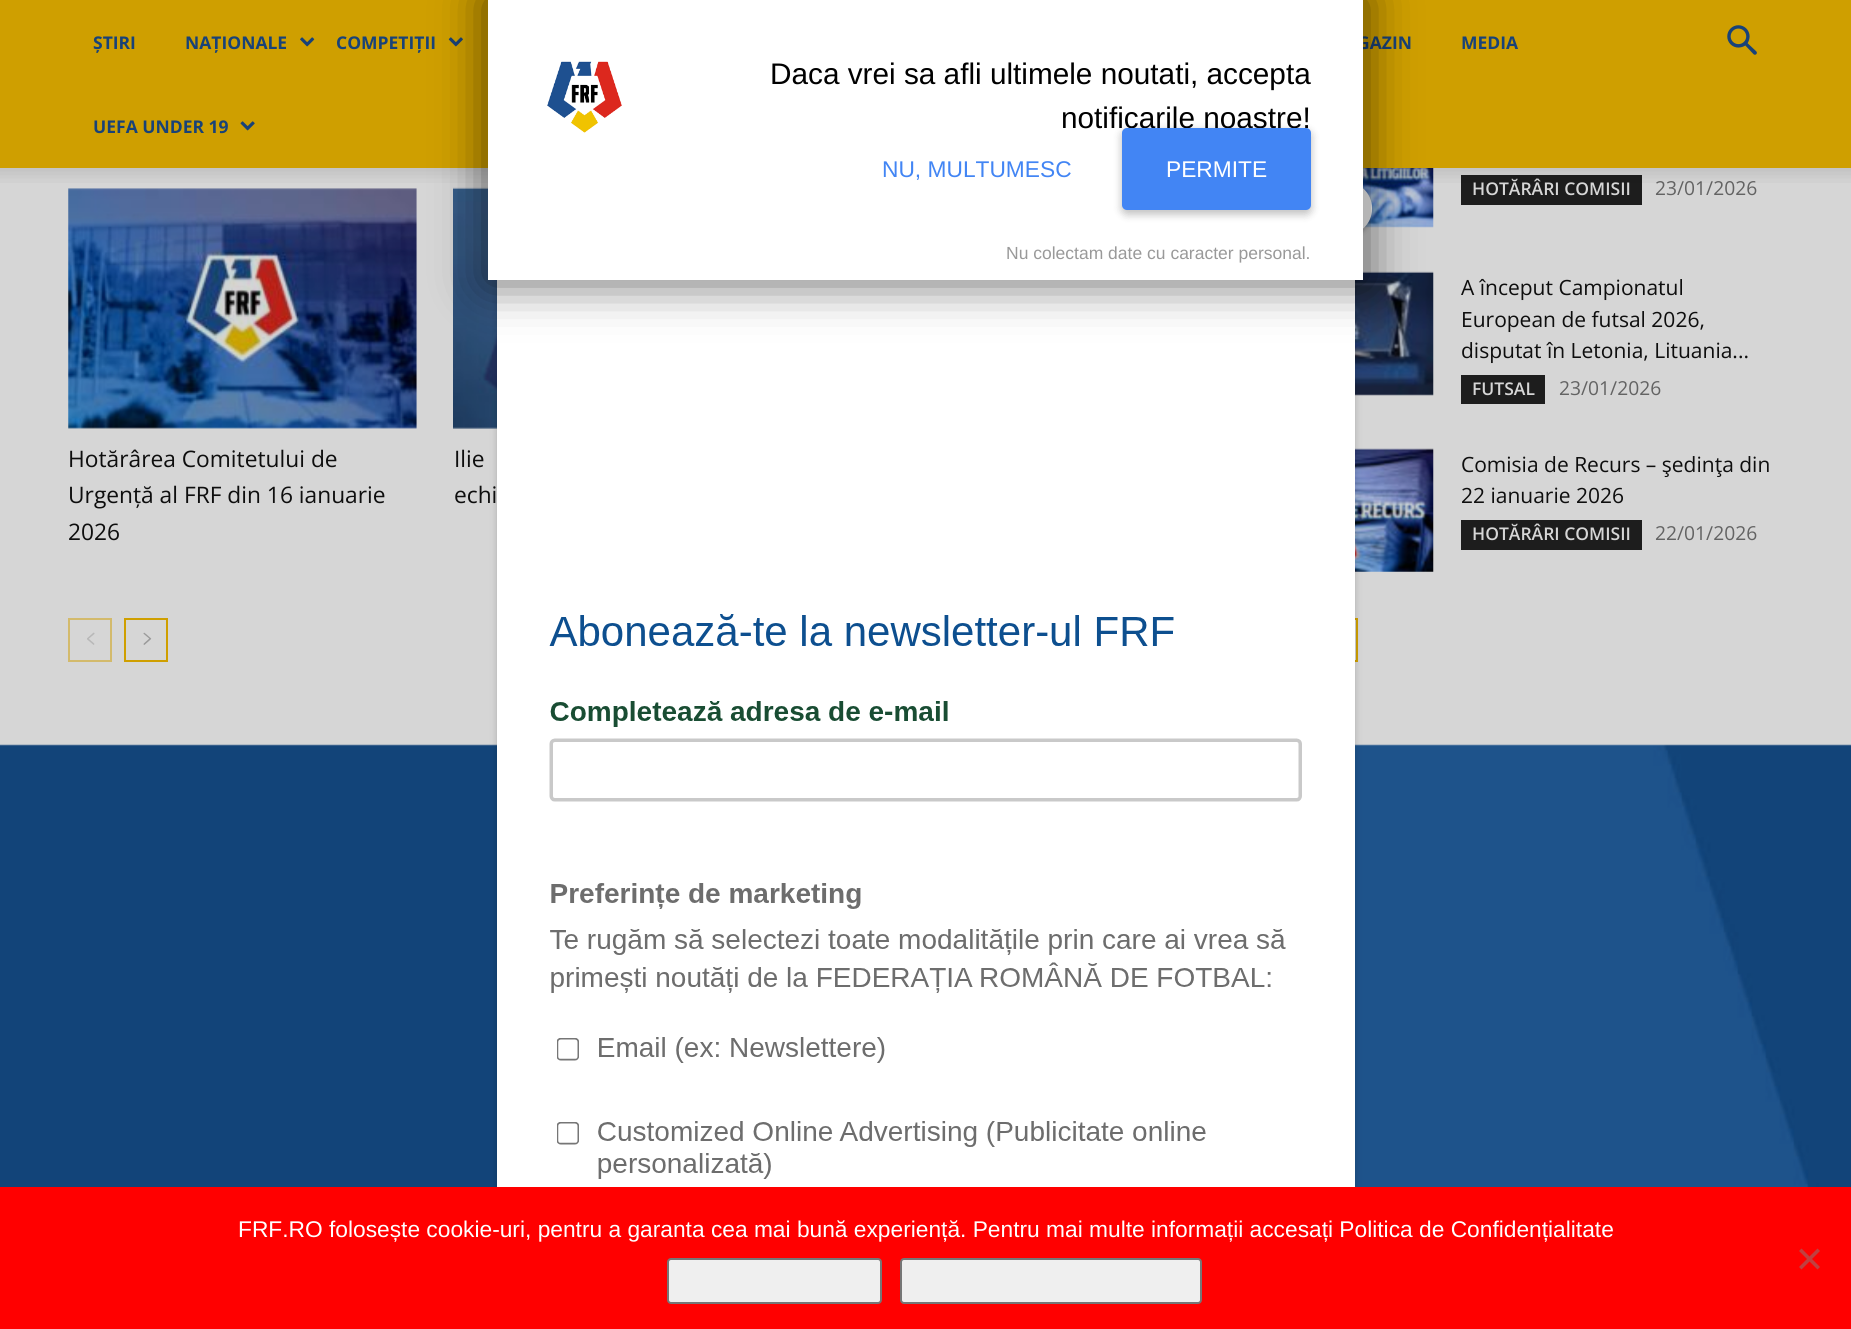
#include <cairo.h>
#include <math.h>
#include <stddef.h>


static void set_color(cairo_t *cr, unsigned color) {
    cairo_set_source_rgb(cr, (color >> 16) / 255.0, (color >> 8 & 255) / 255.0, (color & 255) / 255.0);
}

static void draw_text(cairo_t *cr, double x, double y, const char *s, const char *family, double size, int italic, int bold, unsigned color) {
    cairo_select_font_face(cr, family, italic ? CAIRO_FONT_SLANT_ITALIC : CAIRO_FONT_SLANT_NORMAL,
        bold ? CAIRO_FONT_WEIGHT_BOLD : CAIRO_FONT_WEIGHT_NORMAL);
    cairo_set_font_size(cr, size);
    set_color(cr, color);
    cairo_move_to(cr, x, y);
    cairo_show_text(cr, s);
}

static void fill_rect(cairo_t *cr, double x, double y, double w, double h, unsigned color) {
    set_color(cr, color);
    cairo_rectangle(cr, x, y, w, h);
    cairo_fill(cr);
}

static void rounded_rect(cairo_t *cr, double x, double y, double w, double h, double r) {
    cairo_new_sub_path(cr);
    cairo_arc(cr, x + w - r, y + h - r, r, 0, M_PI / 2);
    cairo_arc(cr, x + r, y + h - r, r, M_PI / 2, M_PI);
    cairo_arc(cr, x + r, y + r, r, M_PI, 1.5 * M_PI);
    cairo_arc(cr, x + w - r, y + r, r, 1.5 * M_PI, 2 * M_PI);
    cairo_close_path(cr);
}

static void draw_shadow(cairo_t *cr, double x, double y, double w, double h, double r, double blur, double alpha) {
    cairo_push_group_with_content(cr, CAIRO_CONTENT_ALPHA);
    cairo_set_operator(cr, CAIRO_OPERATOR_SOURCE);
    for (int i = 15; i >= -15 && fmin(w, h) + blur * i / 3 > 0; i -= 2) {
        double e = blur * i / 6;
        cairo_set_source_rgba(cr, 0, 0, 0, alpha * erfc((i - 1) / 8.5) / 2);
        rounded_rect(cr, x - e, y - e, w + 2 * e, h + 2 * e, fmax(0, fmin(r + e + blur * .6, fmin(w, h) / 2 + e)));
        cairo_fill(cr);
    }
    cairo_pattern_t *soft = cairo_pop_group(cr);
    cairo_mask(cr, soft);
    cairo_pattern_destroy(soft);
}

static void draw_image(cairo_t *cr, const char *path, double x, double y, double w, double h) {
    cairo_surface_t *image = cairo_image_surface_create_from_png(path);
    cairo_save(cr);
    cairo_set_source_surface(cr, image, x, y);
    cairo_rectangle(cr, x, y, w, h);
    cairo_fill(cr);
    cairo_restore(cr);
    cairo_surface_destroy(image);
}

int main(void) {
    cairo_surface_t *surface = cairo_image_surface_create(CAIRO_FORMAT_RGB24, 1851, 1329);
    cairo_t *cr = cairo_create(surface);
    cairo_font_options_t *options = cairo_font_options_create();
    cairo_font_options_set_hint_metrics(options, CAIRO_HINT_METRICS_OFF);
    cairo_font_options_set_hint_style(options, CAIRO_HINT_STYLE_NONE);
    cairo_set_font_options(cr, options);
    cairo_set_miter_limit(cr, 4);
    set_color(cr, 0xD6D6D6);
    cairo_paint(cr);
    fill_rect(cr, 0, 0, 1851, 168, 0xCF9F00);
    draw_text(cr, 93, 49, "ȘTIRI", "Open Sans", 17.5, 0, 1, 0x184278);
    draw_text(cr, 185, 49, "NAȚIONALE", "Open Sans", 17.5, 0, 1, 0x184278);
    draw_image(cr, "assets/img1.png", 300, 37, 15, 10);
    draw_text(cr, 336, 49, "COMPETIȚII", "Open Sans", 17.5, 0, 1, 0x184278);
    draw_image(cr, "assets/img2.png", 448, 37, 15, 10);
    draw_text(cr, 1357, 49, "GAZIN", "Open Sans", 17.5, 0, 1, 0x184278);
    draw_text(cr, 1461, 49, "MEDIA", "Open Sans", 17.5, 0, 1, 0x184278);
    draw_text(cr, 93, 133, "UEFA UNDER 19", "Open Sans", 17.5, 0, 1, 0x184278);
    draw_image(cr, "assets/img3.png", 240, 121, 15, 10);
    draw_image(cr, "assets/img4.png", 1727, 25, 30, 30);
    draw_image(cr, "assets/img10.png", 1363, 168, 71, 60);
    fill_rect(cr, 1461, 175, 181, 30, 0x1D1D1D);
    draw_text(cr, 1472, 195, "HOTĂRÂRI COMISII", "Open Sans SemiBold", 17.5, 0, 0, 0xD6D6D6);
    draw_text(cr, 1655, 195, "23/01/2026", "Open Sans", 19.25, 0, 0, 0x636363);
    draw_image(cr, "assets/img5.png", 0, 168, 1851, 15);
    draw_image(cr, "assets/img6.png", 68, 188, 349, 241);
    draw_text(cr, 68, 467, "Hotărârea Comitetului de", "Open Sans", 22.75, 0, 0, 0x0E0E0E);
    draw_text(cr, 68, 503, "Urgență al FRF din 16 ianuarie", "Open Sans", 22.75, 0, 0, 0x0E0E0E);
    draw_text(cr, 68, 540, "2026", "Open Sans", 22.75, 0, 0, 0x0E0E0E);
    draw_image(cr, "assets/img7.png", 453, 187, 44, 242);
    draw_text(cr, 454, 467, "Ilie", "Open Sans", 22.75, 0, 0, 0x0E0E0E);
    draw_text(cr, 454, 503, "echi", "Open Sans", 22.75, 0, 0, 0x0E0E0E);
    cairo_rectangle(cr, 69, 619, 42, 42);
    set_color(cr, 0xD3BA6C);
    cairo_stroke(cr);
    draw_image(cr, "assets/img8.png", 87, 632, 8, 13);
    cairo_rectangle(cr, 125, 619, 42, 42);
    set_color(cr, 0xCF9F00);
    cairo_stroke(cr);
    draw_image(cr, "assets/img9.png", 143, 632, 9, 13);
    draw_image(cr, "assets/img11.png", 1355, 271, 79, 125);
    draw_text(cr, 1461, 295, "A început Campionatul", "Open Sans", 21, 0, 0, 0x0E0E0E);
    draw_text(cr, 1461, 327, "European de futsal 2026,", "Open Sans", 21, 0, 0, 0x0E0E0E);
    draw_text(cr, 1461, 358, "disputat în Letonia, Lituania...", "Open Sans", 21, 0, 0, 0x0E0E0E);
    fill_rect(cr, 1461, 375, 84, 29, 0x1D1D1D);
    draw_text(cr, 1472, 395, "FUTSAL", "Open Sans SemiBold", 17.5, 0, 0, 0xD6D6D6);
    draw_text(cr, 1559, 395, "23/01/2026", "Open Sans", 19.25, 0, 0, 0x636363);
    draw_image(cr, "assets/img12.png", 1355, 448, 79, 124);
    draw_text(cr, 1461, 472, "Comisia de Recurs – şedinţa din", "Open Sans", 21, 0, 0, 0x0E0E0E);
    draw_text(cr, 1461, 503, "22 ianuarie 2026", "Open Sans", 21, 0, 0, 0x0E0E0E);
    fill_rect(cr, 1461, 520, 181, 30, 0x1D1D1D);
    draw_text(cr, 1472, 540, "HOTĂRÂRI COMISII", "Open Sans SemiBold", 17.5, 0, 0, 0xD6D6D6);
    draw_text(cr, 1655, 540, "22/01/2026", "Open Sans", 19.25, 0, 0, 0x636363);
    cairo_rectangle(cr, 1315, 619, 42, 42);
    set_color(cr, 0xCF9F00);
    cairo_stroke(cr);
    draw_image(cr, "assets/img13.png", 0, 744, 1851, 443);
    set_color(cr, 0x000000);
    draw_shadow(cr, 1320, 186, 52, 52, 26, 2, 0.2);
    draw_shadow(cr, 497, 203, 858, 1026, 0, 3.5, 0.2);
    set_color(cr, 0xFFFFFF);
    rounded_rect(cr, 1320, 182, 52, 53, 26);
    cairo_fill(cr);
    draw_image(cr, "assets/img15.png", 497, 280, 858, 907);
    set_color(cr, 0x000000);
    draw_shadow(cr, 485, -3, 882, 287, 0, 23.5, 0.58);
    fill_rect(cr, 488, 0, 875, 280, 0xFFFFFF);
    draw_image(cr, "assets/img14.png", 547, 61, 75, 72);
    draw_text(cr, 770, 84, "Daca vrei sa afli ultimele noutati, accepta", "Liberation Sans", 29.75, 0, 0, 0x000000);
    draw_text(cr, 1061, 128, "notificarile noastre!", "Liberation Sans", 29.75, 0, 0, 0x000000);
    draw_text(cr, 882, 177, "NU, MULTUMESC", "Liberation Sans", 22.75, 0, 0, 0x4285F4);
    set_color(cr, 0x000000);
    draw_shadow(cr, 1122, 131, 189, 83, 5, 5, 0.12);
    draw_shadow(cr, 1122, 131, 189, 83, 5, 4.5, 0.16);
    set_color(cr, 0x4285F4);
    rounded_rect(cr, 1122, 128, 189, 82, 5);
    cairo_fill(cr);
    draw_text(cr, 1166, 177, "PERMITE", "Liberation Sans", 22.75, 0, 0, 0xFFFFFF);
    draw_text(cr, 1006, 259, "Nu colectam date cu caracter personal.", "Liberation Sans", 17.5, 0, 0, 0x999999);
    fill_rect(cr, 0, 1187, 1851, 142, 0xFF0000);
    draw_text(cr, 238, 1237, "FRF.RO folosește cookie-uri, pentru a garanta cea mai bună experiență. Pentru mai multe informații accesați Politica de Confidențialitate", "Liberation Sans", 22.75, 0, 0, 0xFFFFFF);
    set_color(cr, 0xEFEFEF);
    rounded_rect(cr, 668, 1259, 213, 44, 3);
    cairo_fill_preserve(cr);
    set_color(cr, 0x767676);
    cairo_stroke(cr);
    set_color(cr, 0xEFEFEF);
    rounded_rect(cr, 901, 1259, 300, 44, 3);
    cairo_fill_preserve(cr);
    set_color(cr, 0x767676);
    cairo_stroke(cr);
    set_color(cr, 0xC04040);
    cairo_new_path(cr);
    cairo_move_to(cr, 1817.5, 1248.5);
    cairo_line_to(cr, 1820, 1251);
    cairo_line_to(cr, 1801.5, 1269.5);
    cairo_line_to(cr, 1799, 1267);
    cairo_close_path(cr);
    cairo_fill(cr);
    cairo_new_path(cr);
    cairo_move_to(cr, 1799, 1251);
    cairo_line_to(cr, 1801.5, 1248.5);
    cairo_line_to(cr, 1820, 1267);
    cairo_line_to(cr, 1817.5, 1269.5);
    cairo_close_path(cr);
    cairo_fill(cr);
    cairo_surface_write_to_png(surface, "output.png");
    cairo_font_options_destroy(options);
    cairo_destroy(cr);
    cairo_surface_destroy(surface);
    return 0;
}
